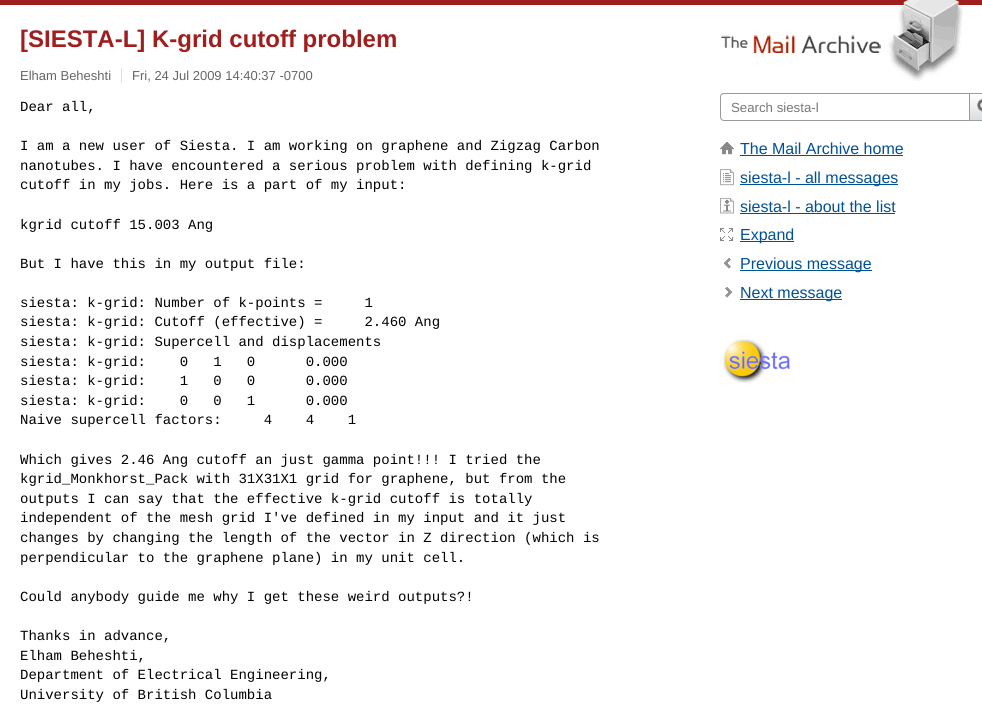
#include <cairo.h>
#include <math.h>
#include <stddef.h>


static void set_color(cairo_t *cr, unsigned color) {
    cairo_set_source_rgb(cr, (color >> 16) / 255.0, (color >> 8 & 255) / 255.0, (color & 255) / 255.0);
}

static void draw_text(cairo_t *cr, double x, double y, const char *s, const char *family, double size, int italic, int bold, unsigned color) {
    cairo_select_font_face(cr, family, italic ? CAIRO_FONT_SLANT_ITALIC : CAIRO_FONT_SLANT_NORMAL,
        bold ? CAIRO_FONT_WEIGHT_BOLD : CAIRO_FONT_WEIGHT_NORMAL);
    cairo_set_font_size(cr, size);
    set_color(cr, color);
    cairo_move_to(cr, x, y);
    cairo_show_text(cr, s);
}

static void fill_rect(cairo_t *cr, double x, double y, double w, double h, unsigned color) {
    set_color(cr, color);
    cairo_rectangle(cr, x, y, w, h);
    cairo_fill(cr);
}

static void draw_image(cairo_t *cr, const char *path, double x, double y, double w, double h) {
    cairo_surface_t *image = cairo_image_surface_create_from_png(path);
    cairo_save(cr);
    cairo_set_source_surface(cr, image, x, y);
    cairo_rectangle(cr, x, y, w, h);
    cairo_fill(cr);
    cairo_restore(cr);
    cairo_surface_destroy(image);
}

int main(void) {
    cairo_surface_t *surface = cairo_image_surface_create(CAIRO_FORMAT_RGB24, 982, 720);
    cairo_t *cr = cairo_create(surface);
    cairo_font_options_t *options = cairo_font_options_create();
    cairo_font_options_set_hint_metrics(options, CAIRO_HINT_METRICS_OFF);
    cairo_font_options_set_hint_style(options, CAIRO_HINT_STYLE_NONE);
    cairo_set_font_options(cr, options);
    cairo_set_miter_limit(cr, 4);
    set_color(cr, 0xFFFFFF);
    cairo_paint(cr);
    fill_rect(cr, 0, 0, 982, 5, 0xA01E1E);
    draw_text(cr, 20, 47, "[SIESTA-L] K-grid cutoff problem", "Liberation Sans", 24, 0, 1, 0xA01E1E);
    draw_text(cr, 20, 80, "Elham Beheshti", "Liberation Sans", 13, 0, 0, 0x666666);
    fill_rect(cr, 121, 68, 1, 15, 0xDDDDDD);
    draw_text(cr, 132, 80, "Fri, 24 Jul 2009 14:40:37 -0700", "Liberation Sans", 13, 0, 0, 0x666666);
    draw_text(cr, 20, 111, "Dear all,", "Liberation Mono", 14, 0, 0, 0x000000);
    draw_text(cr, 20, 150, "I am a new user of Siesta. I am working on graphene and Zigzag Carbon", "Liberation Mono", 14, 0, 0, 0x000000);
    draw_text(cr, 20, 170, "nanotubes. I have encountered a serious problem with defining k-grid", "Liberation Mono", 14, 0, 0, 0x000000);
    draw_text(cr, 20, 189, "cutoff in my jobs. Here is a part of my input:", "Liberation Mono", 14, 0, 0, 0x000000);
    draw_text(cr, 20, 229, "kgrid cutoff 15.003 Ang", "Liberation Mono", 14, 0, 0, 0x000000);
    draw_text(cr, 20, 268, "But I have this in my output file:", "Liberation Mono", 14, 0, 0, 0x000000);
    draw_text(cr, 20, 307, "siesta: k-grid: Number of k-points =     1", "Liberation Mono", 14, 0, 0, 0x000000);
    draw_text(cr, 20, 326, "siesta: k-grid: Cutoff (effective) =     2.460 Ang", "Liberation Mono", 14, 0, 0, 0x000000);
    draw_text(cr, 20, 346, "siesta: k-grid: Supercell and displacements", "Liberation Mono", 14, 0, 0, 0x000000);
    draw_text(cr, 20, 366, "siesta: k-grid:    0   1   0      0.000", "Liberation Mono", 14, 0, 0, 0x000000);
    draw_text(cr, 20, 385, "siesta: k-grid:    1   0   0      0.000", "Liberation Mono", 14, 0, 0, 0x000000);
    draw_text(cr, 20, 405, "siesta: k-grid:    0   0   1      0.000", "Liberation Mono", 14, 0, 0, 0x000000);
    draw_text(cr, 20, 424, "Naive supercell factors:     4    4    1", "Liberation Mono", 14, 0, 0, 0x000000);
    draw_text(cr, 20, 464, "Which gives 2.46 Ang cutoff an just gamma point!!! I tried the", "Liberation Mono", 14, 0, 0, 0x000000);
    draw_text(cr, 20, 483, "kgrid_Monkhorst_Pack with 31X31X1 grid for graphene, but from the", "Liberation Mono", 14, 0, 0, 0x000000);
    draw_text(cr, 20, 503, "outputs I can say that the effective k-grid cutoff is totally", "Liberation Mono", 14, 0, 0, 0x000000);
    draw_text(cr, 20, 522, "independent of the mesh grid I've defined in my input and it just", "Liberation Mono", 14, 0, 0, 0x000000);
    draw_text(cr, 20, 542, "changes by changing the length of the vector in Z direction (which is", "Liberation Mono", 14, 0, 0, 0x000000);
    draw_text(cr, 20, 562, "perpendicular to the graphene plane) in my unit cell.", "Liberation Mono", 14, 0, 0, 0x000000);
    draw_text(cr, 20, 601, "Could anybody guide me why I get these weird outputs?!", "Liberation Mono", 14, 0, 0, 0x000000);
    draw_text(cr, 20, 640, "Thanks in advance,", "Liberation Mono", 14, 0, 0, 0x000000);
    draw_text(cr, 20, 660, "Elham Beheshti,", "Liberation Mono", 14, 0, 0, 0x000000);
    draw_text(cr, 20, 679, "Department of Electrical Engineering,", "Liberation Mono", 14, 0, 0, 0x000000);
    draw_text(cr, 20, 699, "University of British Columbia", "Liberation Mono", 14, 0, 0, 0x000000);
    draw_image(cr, "assets/img1.png", 721, 0, 242, 81);
    cairo_new_path(cr);
    cairo_move_to(cr, 724, 93.5);
    cairo_line_to(cr, 969.5, 93.5);
    cairo_line_to(cr, 969.5, 120.5);
    cairo_line_to(cr, 724, 120.5);
    cairo_curve_to(cr, 722, 120.5, 720.5, 119, 720.5, 117);
    cairo_line_to(cr, 720.5, 97);
    cairo_curve_to(cr, 720.5, 95, 722, 93.5, 724, 93.5);
    cairo_close_path(cr);
    set_color(cr, 0x999999);
    cairo_set_line_width(cr, 1);
    cairo_stroke(cr);
    draw_text(cr, 731, 112, "Search siesta-l", "Liberation Sans", 13.25, 0, 0, 0x777777);
    draw_image(cr, "assets/img2.png", 970, 93, 12, 28);
    draw_image(cr, "assets/img3.png", 720, 142, 14, 13);
    draw_text(cr, 740, 154, "The Mail Archive home", "Liberation Sans", 16, 0, 0, 0x005096);
    fill_rect(cr, 740, 155, 163, 1, 0x005096);
    draw_image(cr, "assets/img4.png", 720, 169, 14, 17);
    fill_rect(cr, 740, 184, 158, 1, 0x005096);
    draw_text(cr, 740, 183, "siesta-l - all messages", "Liberation Sans", 16, 0, 0, 0x005096);
    draw_image(cr, "assets/img5.png", 720, 197, 14, 17);
    draw_text(cr, 740, 212, "siesta-l - about the list", "Liberation Sans", 16, 0, 0, 0x005096);
    fill_rect(cr, 740, 213, 155, 1, 0x005096);
    draw_image(cr, "assets/img6.png", 720, 228, 13, 13);
    fill_rect(cr, 740, 241, 54, 1, 0x005096);
    draw_text(cr, 740, 240, "Expand", "Liberation Sans", 16, 0, 0, 0x005096);
    draw_image(cr, "assets/img7.png", 724, 258, 7, 11);
    fill_rect(cr, 740, 270, 132, 1, 0x005096);
    draw_text(cr, 740, 269, "Previous message", "Liberation Sans", 16, 0, 0, 0x005096);
    draw_image(cr, "assets/img8.png", 725, 287, 7, 11);
    fill_rect(cr, 740, 299, 102, 1, 0x005096);
    draw_text(cr, 740, 298, "Next message", "Liberation Sans", 16, 0, 0, 0x005096);
    draw_image(cr, "assets/img9.png", 723, 339, 67, 44);
    cairo_surface_write_to_png(surface, "output.png");
    cairo_font_options_destroy(options);
    cairo_destroy(cr);
    cairo_surface_destroy(surface);
    return 0;
}
